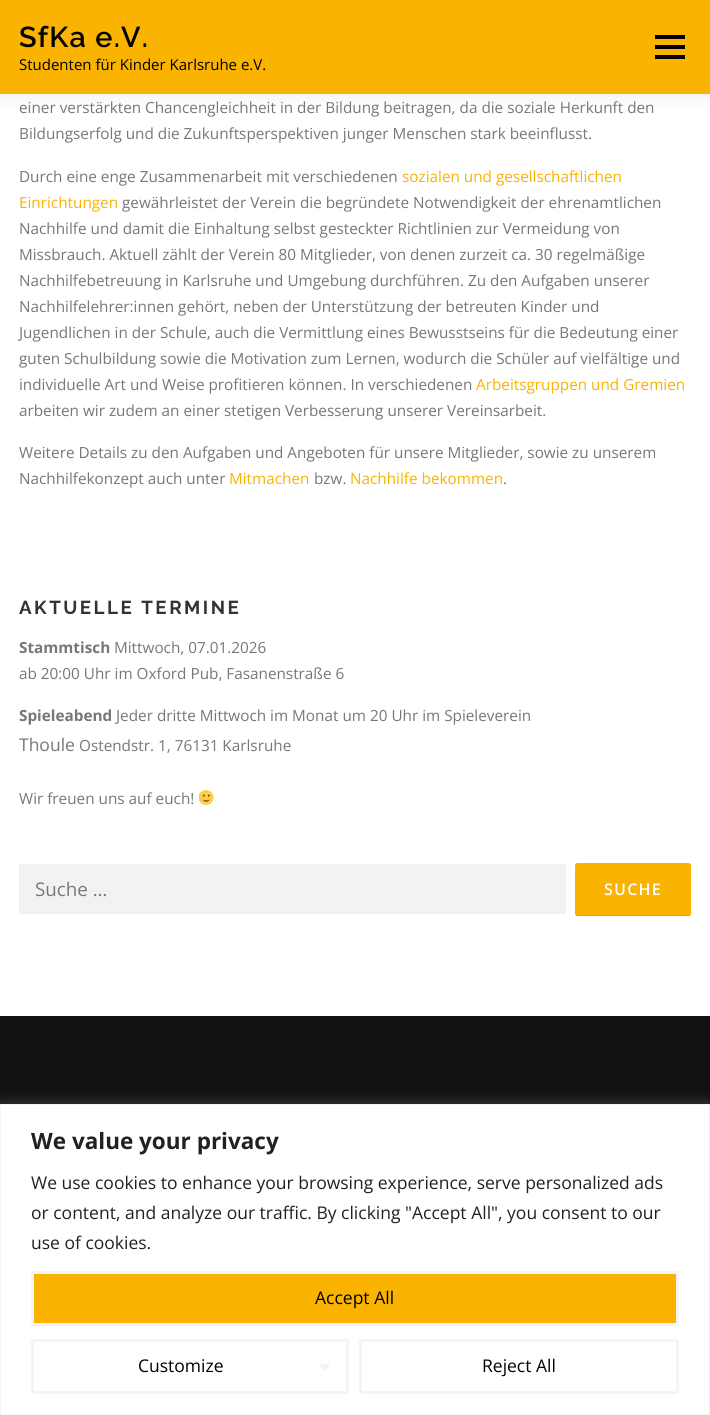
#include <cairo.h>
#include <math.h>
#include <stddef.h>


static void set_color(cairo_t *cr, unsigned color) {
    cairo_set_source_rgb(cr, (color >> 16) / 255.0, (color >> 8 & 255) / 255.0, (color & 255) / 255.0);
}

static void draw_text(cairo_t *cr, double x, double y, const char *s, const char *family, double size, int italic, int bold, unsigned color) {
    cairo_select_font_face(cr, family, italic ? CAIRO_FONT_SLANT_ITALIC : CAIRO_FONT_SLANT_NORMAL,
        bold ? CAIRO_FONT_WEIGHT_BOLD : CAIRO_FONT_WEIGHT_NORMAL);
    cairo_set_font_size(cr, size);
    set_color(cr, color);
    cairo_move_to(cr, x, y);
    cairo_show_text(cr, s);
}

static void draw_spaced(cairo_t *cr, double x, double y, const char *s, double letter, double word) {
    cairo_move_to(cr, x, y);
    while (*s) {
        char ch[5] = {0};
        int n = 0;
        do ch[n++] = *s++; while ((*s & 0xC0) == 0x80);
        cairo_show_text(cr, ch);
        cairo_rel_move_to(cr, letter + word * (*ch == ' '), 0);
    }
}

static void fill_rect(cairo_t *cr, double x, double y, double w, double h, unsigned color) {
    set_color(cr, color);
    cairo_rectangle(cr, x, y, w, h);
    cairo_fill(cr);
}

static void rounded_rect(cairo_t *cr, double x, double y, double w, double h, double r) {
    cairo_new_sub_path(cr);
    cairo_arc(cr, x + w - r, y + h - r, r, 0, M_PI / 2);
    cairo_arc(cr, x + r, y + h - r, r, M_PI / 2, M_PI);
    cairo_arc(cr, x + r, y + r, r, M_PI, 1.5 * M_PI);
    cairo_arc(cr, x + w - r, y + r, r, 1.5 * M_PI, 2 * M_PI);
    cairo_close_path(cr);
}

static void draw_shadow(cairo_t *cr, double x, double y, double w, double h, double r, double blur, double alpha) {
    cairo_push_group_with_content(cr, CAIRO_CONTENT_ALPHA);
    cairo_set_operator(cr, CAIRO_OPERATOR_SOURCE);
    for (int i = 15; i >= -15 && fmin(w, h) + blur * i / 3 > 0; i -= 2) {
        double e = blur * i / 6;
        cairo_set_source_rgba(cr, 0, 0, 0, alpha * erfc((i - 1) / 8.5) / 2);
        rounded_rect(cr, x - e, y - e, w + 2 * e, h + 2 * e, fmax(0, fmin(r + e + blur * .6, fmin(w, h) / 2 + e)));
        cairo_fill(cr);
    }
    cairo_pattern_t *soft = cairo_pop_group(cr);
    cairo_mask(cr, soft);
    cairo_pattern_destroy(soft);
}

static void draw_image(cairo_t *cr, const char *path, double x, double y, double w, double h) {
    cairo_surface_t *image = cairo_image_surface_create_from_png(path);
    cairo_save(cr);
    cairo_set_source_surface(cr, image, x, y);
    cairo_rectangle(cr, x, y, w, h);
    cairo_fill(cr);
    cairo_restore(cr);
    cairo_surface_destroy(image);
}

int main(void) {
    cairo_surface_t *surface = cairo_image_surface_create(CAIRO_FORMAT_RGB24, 710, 1415);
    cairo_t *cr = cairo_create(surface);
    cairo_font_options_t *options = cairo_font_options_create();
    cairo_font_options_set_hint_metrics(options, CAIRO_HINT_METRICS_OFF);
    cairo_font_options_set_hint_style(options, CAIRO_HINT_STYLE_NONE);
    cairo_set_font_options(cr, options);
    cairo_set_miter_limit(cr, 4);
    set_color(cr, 0xFFFFFF);
    cairo_paint(cr);
    set_color(cr, 0x323232);
    draw_shadow(cr, 0, 6, 710, 94, 0, 6, 0.06);
    fill_rect(cr, 0, 0, 710, 94, 0xF9B300);
    cairo_select_font_face(cr, "Raleway SemiBold", CAIRO_FONT_SLANT_NORMAL, CAIRO_FONT_WEIGHT_NORMAL);
    cairo_set_font_size(cr, 28.75);
    set_color(cr, 0x000000);
    draw_spaced(cr, 19, 47, "SfKa e.V.", 1.25, 0);
    draw_text(cr, 19, 70, "Studenten für Kinder Karlsruhe e.V.", "Open Sans", 15, 0, 0, 0x000000);
    fill_rect(cr, 655, 45, 30, 4, 0x000000);
    fill_rect(cr, 655, 35, 30, 4, 0x000000);
    fill_rect(cr, 655, 55, 30, 4, 0x000000);
    draw_text(cr, 19, 113, "einer verstärkten Chancengleichheit in der Bildung beitragen, da die soziale Herkunft den", "Open Sans", 15.3, 0, 0, 0x777777);
    draw_text(cr, 19, 139, "Bildungserfolg und die Zukunftsperspektiven junger Menschen stark beeinflusst.", "Open Sans", 15.3, 0, 0, 0x777777);
    draw_text(cr, 19, 182, "Durch eine enge Zusammenarbeit mit verschiedenen", "Open Sans", 15.3, 0, 0, 0x777777);
    draw_text(cr, 402, 182, "sozialen und gesellschaftlichen", "Open Sans", 15.3, 0, 0, 0xF9B300);
    draw_text(cr, 19, 208, "Einrichtungen", "Open Sans", 15.3, 0, 0, 0xF9B300);
    draw_text(cr, 122, 208, "gewährleistet der Verein die begründete Notwendigkeit der ehrenamtlichen", "Open Sans", 15.3, 0, 0, 0x777777);
    draw_text(cr, 19, 234, "Nachhilfe und damit die Einhaltung selbst gesteckter Richtlinien zur Vermeidung von", "Open Sans", 15.3, 0, 0, 0x777777);
    draw_text(cr, 19, 260, "Missbrauch. Aktuell zählt der Verein 80 Mitglieder, von denen zurzeit ca. 30 regelmäßige", "Open Sans", 15.3, 0, 0, 0x777777);
    draw_text(cr, 19, 286, "Nachhilfebetreuung in Karlsruhe und Umgebung durchführen. Zu den Aufgaben unserer", "Open Sans", 15.3, 0, 0, 0x777777);
    draw_text(cr, 19, 312, "Nachhilfelehrer:innen gehört, neben der Unterstützung der betreuten Kinder und", "Open Sans", 15.3, 0, 0, 0x777777);
    draw_text(cr, 19, 338, "Jugendlichen in der Schule, auch die Vermittlung eines Bewusstseins für die Bedeutung einer", "Open Sans", 15.3, 0, 0, 0x777777);
    draw_text(cr, 19, 364, "guten Schulbildung sowie die Motivation zum Lernen, wodurch die Schüler auf vielfältige und", "Open Sans", 15.3, 0, 0, 0x777777);
    draw_text(cr, 19, 390, "individuelle Art und Weise profitieren können. In verschiedenen", "Open Sans", 15.3, 0, 0, 0x777777);
    draw_text(cr, 476, 390, "Arbeitsgruppen und Gremien", "Open Sans", 15.3, 0, 0, 0xF9B300);
    draw_text(cr, 19, 416, "arbeiten wir zudem an einer stetigen Verbesserung unserer Vereinsarbeit.", "Open Sans", 15.3, 0, 0, 0x777777);
    draw_text(cr, 19, 458, "Weitere Details zu den Aufgaben und Angeboten für unsere Mitglieder, sowie zu unserem", "Open Sans", 15.3, 0, 0, 0x777777);
    draw_text(cr, 19, 484, "Nachhilfekonzept auch unter", "Open Sans", 15.3, 0, 0, 0x777777);
    draw_text(cr, 229, 484, "Mitmachen", "Open Sans", 15.3, 0, 0, 0xF9B300);
    draw_text(cr, 314, 484, "bzw.", "Open Sans", 15.3, 0, 0, 0x777777);
    draw_text(cr, 350, 484, "Nachhilfe bekommen", "Open Sans", 15.3, 0, 0, 0xF9B300);
    draw_text(cr, 503, 484, ".", "Open Sans", 15.3, 0, 0, 0x777777);
    cairo_select_font_face(cr, "Raleway", CAIRO_FONT_SLANT_NORMAL, CAIRO_FONT_WEIGHT_BOLD);
    cairo_set_font_size(cr, 18.75);
    set_color(cr, 0x333333);
    draw_spaced(cr, 19, 614, "AKTUELLE TERMINE", 2.5, 0);
    draw_text(cr, 19, 653, "Stammtisch", "Open Sans", 15.3, 0, 1, 0x777777);
    draw_text(cr, 114, 653, "Mittwoch, 07.01.2026", "Open Sans", 15.3, 0, 0, 0x777777);
    draw_text(cr, 19, 679, "ab 20:00 Uhr im Oxford Pub, Fasanenstraße 6", "Open Sans", 15.3, 0, 0, 0x777777);
    draw_text(cr, 19, 721, "Spieleabend", "Open Sans", 15.3, 0, 1, 0x777777);
    draw_text(cr, 116, 721, "Jeder dritte Mittwoch im Monat um 20 Uhr im Spieleverein", "Open Sans", 15.3, 0, 0, 0x777777);
    draw_text(cr, 19, 751, "Thoule", "Open Sans", 17.5, 0, 0, 0x777777);
    draw_text(cr, 79, 751, "Ostendstr. 1, 76131 Karlsruhe", "Open Sans", 15.3, 0, 0, 0x777777);
    draw_text(cr, 19, 804, "Wir freuen uns auf euch!", "Open Sans", 15.3, 0, 0, 0x777777);
    draw_image(cr, "assets/img1.png", 199, 790, 15, 15);
    fill_rect(cr, 19, 864, 547, 50, 0xF2F2F2);
    draw_text(cr, 35, 896, "Suche …", "Open Sans", 18.75, 0, 0, 0x777777);
    set_color(cr, 0xF9B300);
    rounded_rect(cr, 575, 863, 116, 53, 2.5);
    cairo_fill(cr);
    cairo_set_source_rgba(cr, 0, 0, 0, 0.1);
    cairo_new_path(cr);
    cairo_move_to(cr, 575, 912);
    cairo_line_to(cr, 575, 914);
    cairo_curve_to(cr, 575, 915, 576, 916, 578, 916);
    cairo_line_to(cr, 688, 916);
    cairo_curve_to(cr, 690, 916, 691, 915, 691, 914);
    cairo_line_to(cr, 691, 912);
    cairo_curve_to(cr, 691, 914, 690, 915, 689, 915);
    cairo_line_to(cr, 578, 915);
    cairo_curve_to(cr, 576, 915, 575, 914, 575, 912);
    cairo_close_path(cr);
    cairo_fill(cr);
    cairo_select_font_face(cr, "Open Sans SemiBold", CAIRO_FONT_SLANT_NORMAL, CAIRO_FONT_WEIGHT_NORMAL);
    cairo_set_font_size(cr, 16);
    set_color(cr, 0xFFFFFF);
    draw_spaced(cr, 604, 895, "SUCHE", 1.25, 0);
    fill_rect(cr, 0, 1016, 710, 88, 0x111111);
    set_color(cr, 0xACABAB);
    draw_shadow(cr, 0, 1103, 710, 311, 0, 6, 0.3);
    set_color(cr, 0xFFFFFF);
    cairo_rectangle(cr, 0.5, 1104.5, 709, 310);
    cairo_fill_preserve(cr);
    set_color(cr, 0xF4F4F4);
    cairo_set_line_width(cr, 1);
    cairo_stroke(cr);
    draw_text(cr, 31, 1149, "We value your privacy", "Open Sans", 22.5, 0, 1, 0x212121);
    draw_text(cr, 31, 1189, "We use cookies to enhance your browsing experience, serve personalized ads", "Open Sans", 17.5, 0, 0, 0x212121);
    draw_text(cr, 31, 1219, "or content, and analyze our traffic. By clicking \"Accept All\", you consent to our", "Open Sans", 17.5, 0, 0, 0x212121);
    draw_text(cr, 31, 1249, "use of cookies.", "Open Sans", 17.5, 0, 0, 0x212121);
    set_color(cr, 0xF9B300);
    rounded_rect(cr, 32.5, 1272.5, 645, 52, 1);
    cairo_fill_preserve(cr);
    set_color(cr, 0xF4F4F4);
    cairo_set_line_width(cr, 3);
    cairo_stroke(cr);
    draw_text(cr, 315, 1304, "Accept All", "Open Sans", 17.5, 0, 0, 0x000000);
    rounded_rect(cr, 32.5, 1340.5, 315, 52, 1);
    set_color(cr, 0xF4F4F4);
    cairo_stroke(cr);
    draw_text(cr, 138, 1372, "Customize", "Open Sans", 17.5, 0, 0, 0x000000);
    set_color(cr, 0xF4F4F4);
    cairo_new_path(cr);
    cairo_move_to(cr, 319, 1364);
    cairo_line_to(cr, 331, 1364);
    cairo_line_to(cr, 325, 1371);
    cairo_close_path(cr);
    cairo_fill(cr);
    rounded_rect(cr, 360.5, 1340.5, 317, 52, 1);
    cairo_stroke(cr);
    draw_text(cr, 482, 1372, "Reject All", "Open Sans", 17.5, 0, 0, 0x000000);
    cairo_surface_write_to_png(surface, "output.png");
    cairo_font_options_destroy(options);
    cairo_destroy(cr);
    cairo_surface_destroy(surface);
    return 0;
}
